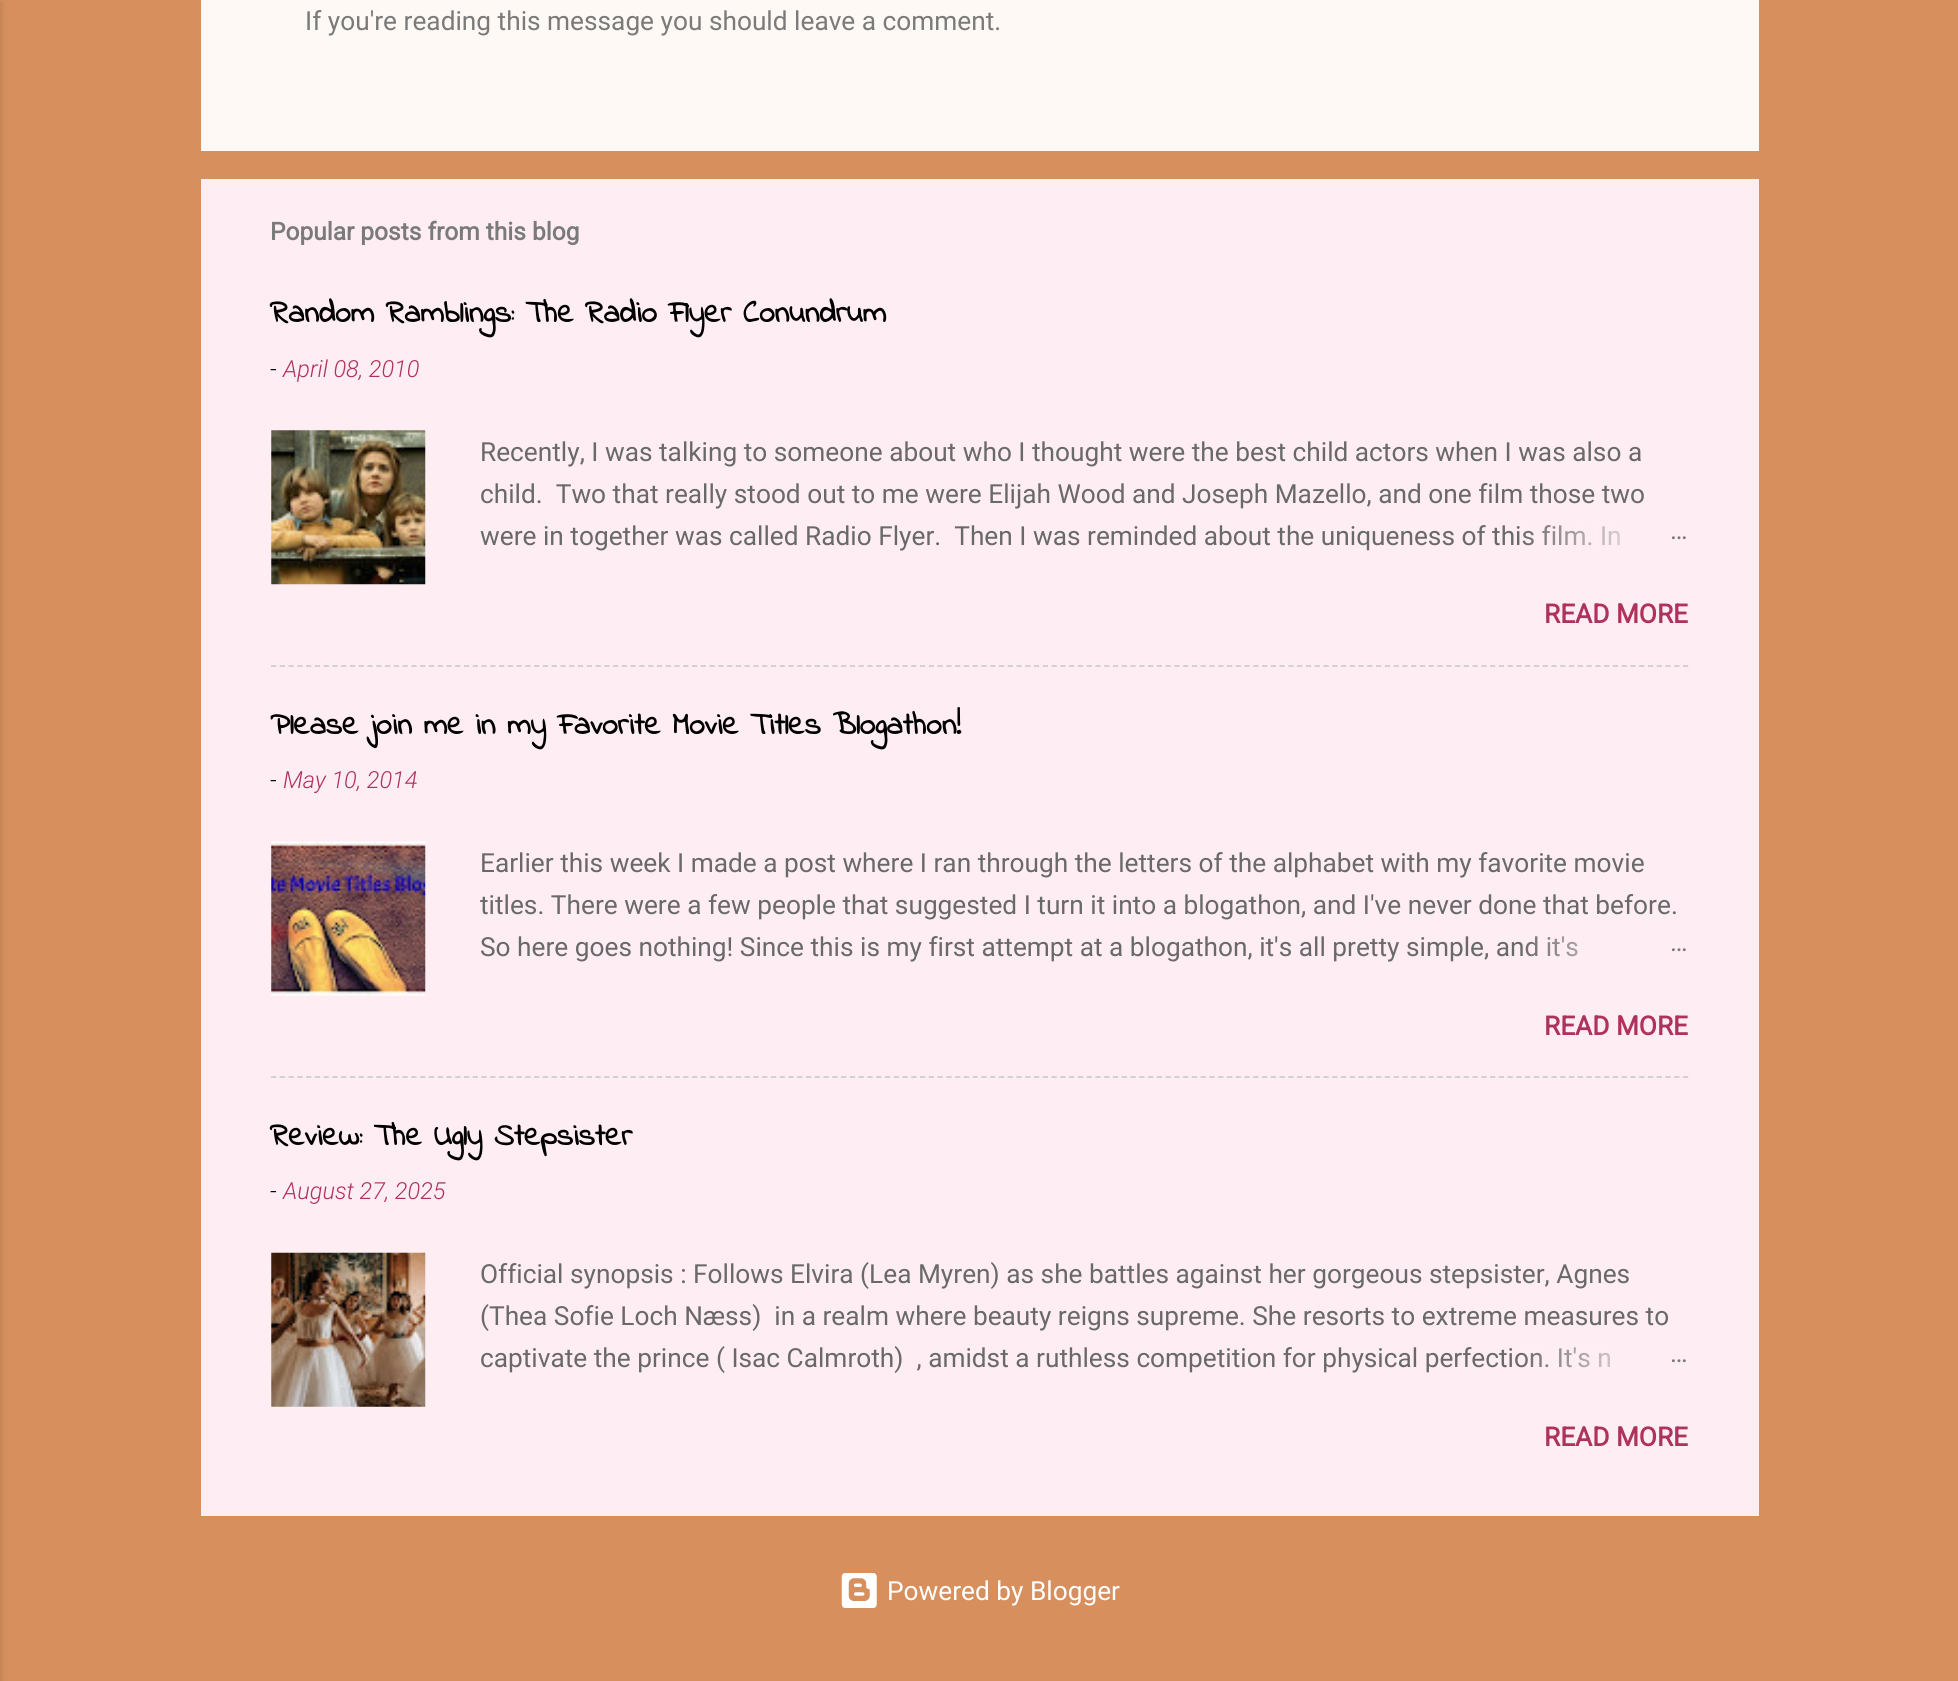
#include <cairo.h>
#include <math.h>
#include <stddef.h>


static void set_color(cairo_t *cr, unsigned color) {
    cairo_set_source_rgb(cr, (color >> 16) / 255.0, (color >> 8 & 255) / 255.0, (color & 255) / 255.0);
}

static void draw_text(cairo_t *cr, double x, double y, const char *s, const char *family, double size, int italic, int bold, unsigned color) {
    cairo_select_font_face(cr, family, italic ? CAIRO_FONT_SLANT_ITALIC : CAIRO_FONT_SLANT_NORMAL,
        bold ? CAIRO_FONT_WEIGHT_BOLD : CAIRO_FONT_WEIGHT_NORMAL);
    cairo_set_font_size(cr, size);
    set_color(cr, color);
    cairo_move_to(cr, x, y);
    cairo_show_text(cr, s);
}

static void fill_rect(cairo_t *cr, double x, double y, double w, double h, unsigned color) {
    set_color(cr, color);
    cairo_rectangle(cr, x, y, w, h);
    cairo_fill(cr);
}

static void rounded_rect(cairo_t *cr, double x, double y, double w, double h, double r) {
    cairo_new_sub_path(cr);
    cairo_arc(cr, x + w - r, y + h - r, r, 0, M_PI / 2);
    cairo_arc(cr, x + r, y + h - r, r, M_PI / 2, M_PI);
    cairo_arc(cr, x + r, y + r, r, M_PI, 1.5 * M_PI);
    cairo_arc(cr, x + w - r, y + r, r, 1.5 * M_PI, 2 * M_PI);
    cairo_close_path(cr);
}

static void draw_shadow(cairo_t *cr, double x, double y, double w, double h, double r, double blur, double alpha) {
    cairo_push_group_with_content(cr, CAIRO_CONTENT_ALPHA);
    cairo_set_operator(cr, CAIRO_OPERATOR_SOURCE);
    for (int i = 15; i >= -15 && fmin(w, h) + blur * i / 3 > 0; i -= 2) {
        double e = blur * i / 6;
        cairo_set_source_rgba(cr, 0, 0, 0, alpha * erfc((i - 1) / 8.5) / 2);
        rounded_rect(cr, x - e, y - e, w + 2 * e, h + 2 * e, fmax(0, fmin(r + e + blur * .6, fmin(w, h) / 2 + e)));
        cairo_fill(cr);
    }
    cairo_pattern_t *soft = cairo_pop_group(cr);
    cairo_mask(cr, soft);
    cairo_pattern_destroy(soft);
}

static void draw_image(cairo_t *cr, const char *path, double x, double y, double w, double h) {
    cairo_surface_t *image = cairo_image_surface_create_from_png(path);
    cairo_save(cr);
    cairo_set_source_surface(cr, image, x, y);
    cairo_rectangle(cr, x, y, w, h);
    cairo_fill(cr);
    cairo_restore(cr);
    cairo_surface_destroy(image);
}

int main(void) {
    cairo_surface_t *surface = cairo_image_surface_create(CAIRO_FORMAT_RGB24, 1958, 1681);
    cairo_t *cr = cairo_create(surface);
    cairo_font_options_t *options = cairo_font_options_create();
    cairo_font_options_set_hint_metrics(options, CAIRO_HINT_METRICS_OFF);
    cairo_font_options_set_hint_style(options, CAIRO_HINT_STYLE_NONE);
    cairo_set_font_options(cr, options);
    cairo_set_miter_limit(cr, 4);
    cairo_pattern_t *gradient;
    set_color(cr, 0xD68F5D);
    cairo_paint(cr);
    set_color(cr, 0x000000);
    draw_shadow(cr, -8, 2, 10, 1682, 0, 2.5, 0.1);
    fill_rect(cr, 201, 0, 1558, 151, 0xFEF9F5);
    draw_text(cr, 305, 30, "If you're reading this message you should leave a comment.", "Roboto", 26.25, 0, 0, 0x7A7A7A);
    fill_rect(cr, 201, 179, 1558, 1337, 0xFEEEF4);
    draw_text(cr, 270, 240, "Popular posts from this blog", "Roboto", 24.5, 0, 1, 0x7A7A7A);
    draw_text(cr, 270, 322, "Random Ramblings: The Radio Flyer Conundrum", "Indie Flower", 31.5, 0, 1, 0x000000);
    draw_text(cr, 270, 377, "-", "Roboto Light", 23.5, 1, 0, 0x000000);
    draw_text(cr, 283, 377, "April 08, 2010", "Roboto Light", 23.5, 1, 0, 0xAF325C);
    draw_image(cr, "assets/img1.png", 271, 430, 155, 155);
    draw_text(cr, 480, 461, "Recently, I was talking to someone about who I thought were the best child actors when I was also a", "Roboto", 26.25, 0, 0, 0x696969);
    draw_text(cr, 480, 503, "child.  Two that really stood out to me were Elijah Wood and Joseph Mazello, and one film those two", "Roboto", 26.25, 0, 0, 0x696969);
    draw_text(cr, 480, 545, "were in together was called Radio Flyer.  Then I was reminded about the uniqueness of this film. In", "Roboto", 26.25, 0, 0, 0x696969);
    gradient = cairo_pattern_create_linear(1689, 536, 1521, 536);
    cairo_pattern_add_color_stop_rgba(gradient, 0, 0.996, 0.933, 0.957, 1);
    cairo_pattern_add_color_stop_rgba(gradient, 0.2, 0.996, 0.933, 0.957, 1);
    cairo_pattern_add_color_stop_rgba(gradient, 1, 0.996, 0.933, 0.957, 0);
    cairo_set_source(cr, gradient);
    cairo_pattern_destroy(gradient);
    cairo_rectangle(cr, 1524, 525, 97, 21);
    cairo_fill(cr);
    draw_text(cr, 1670, 539, "…", "Roboto", 26.25, 0, 0, 0x7A7A7A);
    draw_text(cr, 1544, 623, "READ MORE", "Roboto", 26.25, 0, 1, 0xAF325C);
    cairo_new_path(cr);
    cairo_move_to(cr, 271, 666);
    cairo_line_to(cr, 1689, 666);
    set_color(cr, 0xCECECE);
    cairo_set_line_width(cr, 1.8);
    cairo_set_dash(cr, (double[]){5.25, 3.52}, 2, 0);
    cairo_stroke(cr);
    draw_text(cr, 270, 734, "Please join me in my Favorite Movie Titles Blogathon!", "Indie Flower", 31.5, 0, 1, 0x000000);
    draw_text(cr, 270, 788, "-", "Roboto Light", 23.5, 1, 0, 0x000000);
    draw_text(cr, 283, 788, "May 10, 2014", "Roboto Light", 23.5, 1, 0, 0xAF325C);
    draw_image(cr, "assets/img2.png", 271, 841, 155, 155);
    draw_text(cr, 480, 872, "Earlier this week I made a post where I ran through the letters of the alphabet with my favorite movie", "Roboto", 26.25, 0, 0, 0x696969);
    draw_text(cr, 480, 914, "titles. There were a few people that suggested I turn it into a blogathon, and I've never done that before.", "Roboto", 26.25, 0, 0, 0x696969);
    draw_text(cr, 480, 956, "So here goes nothing! Since this is my first attempt at a blogathon, it's all pretty simple, and it's", "Roboto", 26.25, 0, 0, 0x696969);
    gradient = cairo_pattern_create_linear(1689, 947, 1521, 947);
    cairo_pattern_add_color_stop_rgba(gradient, 0, 0.996, 0.933, 0.957, 1);
    cairo_pattern_add_color_stop_rgba(gradient, 0.2, 0.996, 0.933, 0.957, 1);
    cairo_pattern_add_color_stop_rgba(gradient, 1, 0.996, 0.933, 0.957, 0);
    cairo_set_source(cr, gradient);
    cairo_pattern_destroy(gradient);
    cairo_rectangle(cr, 1526, 936, 52, 21);
    cairo_fill(cr);
    draw_text(cr, 1670, 951, "…", "Roboto", 26.25, 0, 0, 0x7A7A7A);
    draw_text(cr, 1544, 1035, "READ MORE", "Roboto", 26.25, 0, 1, 0xAF325C);
    cairo_new_path(cr);
    cairo_move_to(cr, 271, 1077);
    cairo_line_to(cr, 1689, 1077);
    set_color(cr, 0xCECECE);
    cairo_stroke(cr);
    draw_text(cr, 270, 1145, "Review: The Ugly Stepsister", "Indie Flower", 31.5, 0, 1, 0x000000);
    draw_text(cr, 270, 1199, "-", "Roboto Light", 23.5, 1, 0, 0x000000);
    draw_text(cr, 283, 1199, "August 27, 2025", "Roboto Light", 23.5, 1, 0, 0xAF325C);
    draw_image(cr, "assets/img3.png", 271, 1252, 155, 155);
    draw_text(cr, 480, 1283, "Official synopsis : Follows Elvira (Lea Myren) as she battles against her gorgeous stepsister, Agnes", "Roboto", 26.25, 0, 0, 0x696969);
    draw_text(cr, 480, 1325, "(Thea Sofie Loch Næss)  in a realm where beauty reigns supreme. She resorts to extreme measures to", "Roboto", 26.25, 0, 0, 0x696969);
    draw_text(cr, 480, 1367, "captivate the prince ( Isac Calmroth)  , amidst a ruthless competition for physical perfection. It's n", "Roboto", 26.25, 0, 0, 0x696969);
    gradient = cairo_pattern_create_linear(1689, 1358, 1521, 1358);
    cairo_pattern_add_color_stop_rgba(gradient, 0, 0.996, 0.933, 0.957, 1);
    cairo_pattern_add_color_stop_rgba(gradient, 0.2, 0.996, 0.933, 0.957, 1);
    cairo_pattern_add_color_stop_rgba(gradient, 1, 0.996, 0.933, 0.957, 0);
    cairo_set_source(cr, gradient);
    cairo_pattern_destroy(gradient);
    cairo_rectangle(cr, 1524, 1347, 87, 21);
    cairo_fill(cr);
    draw_text(cr, 1670, 1362, "…", "Roboto", 26.25, 0, 0, 0x7A7A7A);
    draw_text(cr, 1544, 1446, "READ MORE", "Roboto", 26.25, 0, 1, 0xAF325C);
    draw_image(cr, "assets/img4.png", 841, 1573, 36, 35);
    draw_text(cr, 887, 1600, "Powered by Blogger", "Roboto", 26.25, 0, 0, 0xFFFFFF);
    cairo_surface_write_to_png(surface, "output.png");
    cairo_font_options_destroy(options);
    cairo_destroy(cr);
    cairo_surface_destroy(surface);
    return 0;
}
